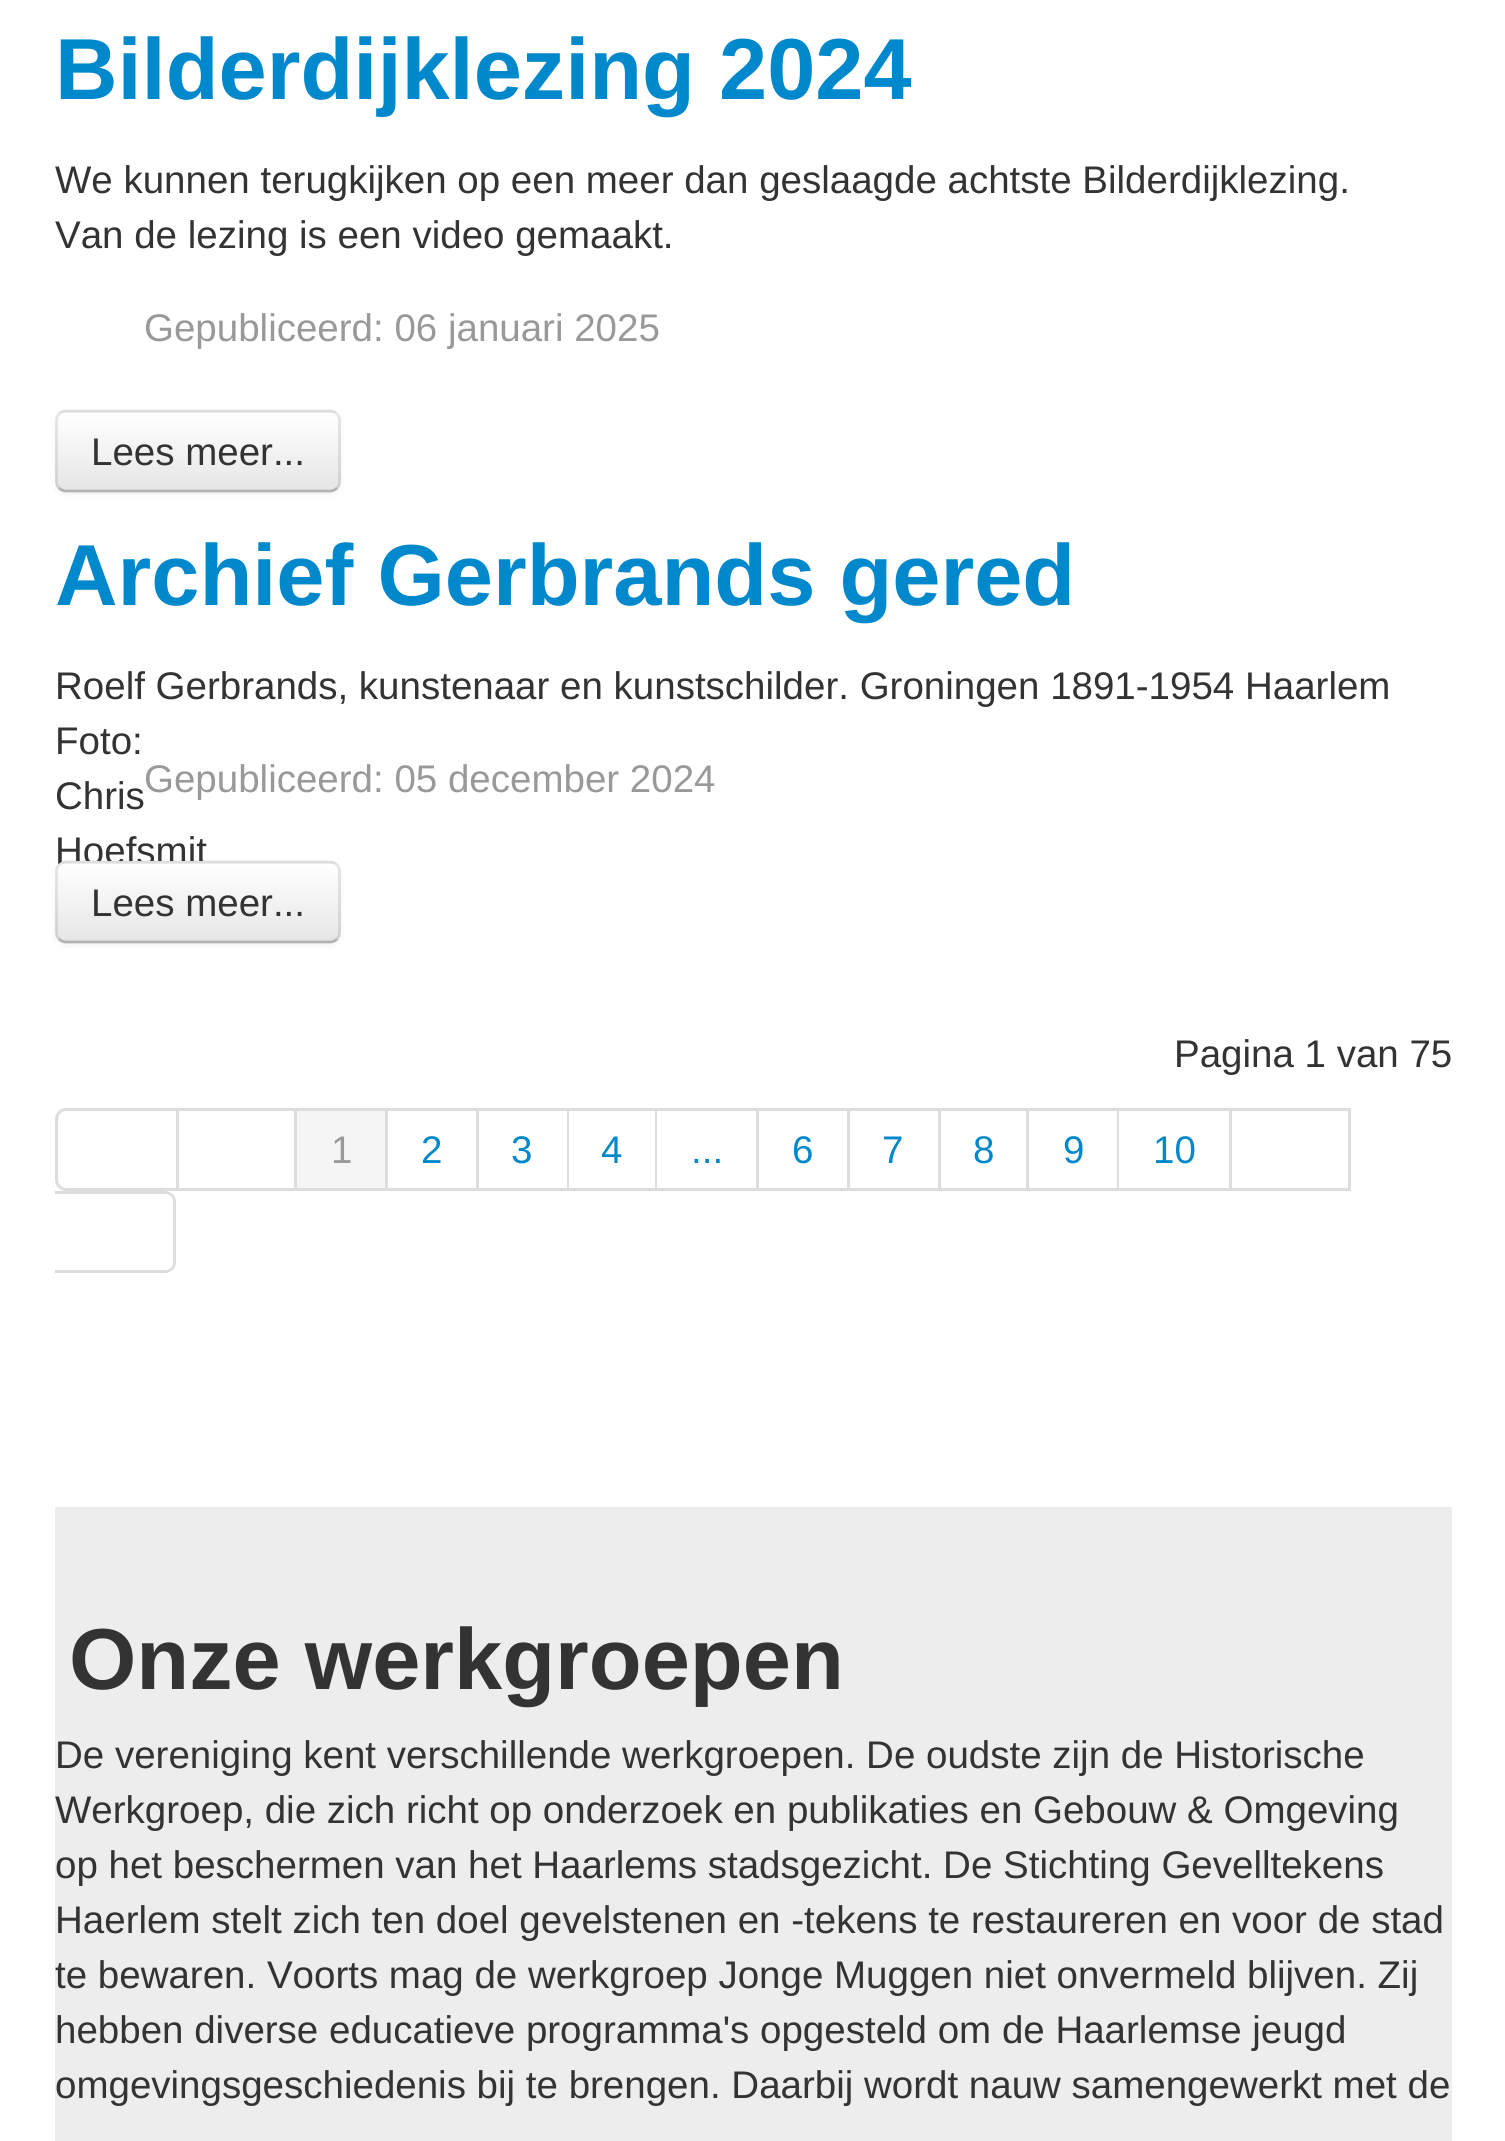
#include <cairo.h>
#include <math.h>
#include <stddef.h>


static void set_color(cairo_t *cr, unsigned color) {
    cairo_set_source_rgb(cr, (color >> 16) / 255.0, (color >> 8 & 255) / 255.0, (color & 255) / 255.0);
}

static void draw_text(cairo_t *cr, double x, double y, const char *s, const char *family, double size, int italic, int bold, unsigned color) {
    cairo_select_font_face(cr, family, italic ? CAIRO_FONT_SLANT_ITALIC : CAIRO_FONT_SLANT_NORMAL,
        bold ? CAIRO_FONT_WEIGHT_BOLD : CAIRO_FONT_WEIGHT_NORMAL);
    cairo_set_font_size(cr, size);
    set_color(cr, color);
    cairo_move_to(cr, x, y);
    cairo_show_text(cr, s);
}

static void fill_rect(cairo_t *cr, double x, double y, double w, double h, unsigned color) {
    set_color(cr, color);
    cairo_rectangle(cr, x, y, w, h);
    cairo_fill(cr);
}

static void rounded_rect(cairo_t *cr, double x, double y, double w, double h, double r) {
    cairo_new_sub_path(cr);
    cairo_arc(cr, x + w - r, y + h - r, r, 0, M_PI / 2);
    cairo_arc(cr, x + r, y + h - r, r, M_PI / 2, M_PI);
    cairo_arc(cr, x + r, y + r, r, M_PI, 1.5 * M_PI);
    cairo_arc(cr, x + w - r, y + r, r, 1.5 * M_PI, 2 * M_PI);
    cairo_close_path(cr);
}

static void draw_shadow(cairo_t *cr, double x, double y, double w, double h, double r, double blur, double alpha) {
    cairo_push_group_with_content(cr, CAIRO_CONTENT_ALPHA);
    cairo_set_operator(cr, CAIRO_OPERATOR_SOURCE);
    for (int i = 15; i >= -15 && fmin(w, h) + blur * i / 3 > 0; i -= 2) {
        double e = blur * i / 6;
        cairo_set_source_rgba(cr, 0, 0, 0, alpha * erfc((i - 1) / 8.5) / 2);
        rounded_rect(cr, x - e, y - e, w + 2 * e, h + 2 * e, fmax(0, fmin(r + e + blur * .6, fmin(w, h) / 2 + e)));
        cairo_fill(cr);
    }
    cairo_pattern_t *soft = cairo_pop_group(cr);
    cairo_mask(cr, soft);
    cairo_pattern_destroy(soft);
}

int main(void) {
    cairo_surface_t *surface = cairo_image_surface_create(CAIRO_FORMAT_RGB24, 1505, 2141);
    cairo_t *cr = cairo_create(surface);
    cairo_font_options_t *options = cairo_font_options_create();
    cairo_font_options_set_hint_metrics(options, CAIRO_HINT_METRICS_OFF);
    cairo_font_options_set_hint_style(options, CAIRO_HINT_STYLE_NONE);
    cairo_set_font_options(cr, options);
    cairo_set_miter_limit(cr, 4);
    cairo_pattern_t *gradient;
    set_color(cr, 0xFFFFFF);
    cairo_paint(cr);
    draw_text(cr, 55, 99, "Bilderdijklezing 2024", "Liberation Sans", 86.6, 0, 1, 0x0088CC);
    draw_text(cr, 55, 193, "We kunnen terugkijken op een meer dan geslaagde achtste Bilderdijklezing.", "Liberation Sans", 38.5, 0, 0, 0x333333);
    draw_text(cr, 55, 248, "Van de lezing is een video gemaakt.", "Liberation Sans", 38.5, 0, 0, 0x333333);
    draw_text(cr, 144, 341, "Gepubliceerd: 06 januari 2025", "Liberation Sans", 38.5, 0, 0, 0x999999);
    set_color(cr, 0x000000);
    draw_shadow(cr, 55, 413, 286, 82, 11, 3, 0.05);
    set_color(cr, 0xF5F5F5);
    rounded_rect(cr, 55, 410, 286, 82, 11);
    cairo_fill(cr);
    cairo_save(cr);
    rounded_rect(cr, 55, 410, 286, 82, 11);
    cairo_clip(cr);
    gradient = cairo_pattern_create_linear(198, 413, 198, 490);
    cairo_pattern_add_color_stop_rgba(gradient, 0, 1, 1, 1, 1);
    cairo_pattern_add_color_stop_rgba(gradient, 1, 0.902, 0.902, 0.902, 1);
    cairo_set_source(cr, gradient);
    cairo_pattern_destroy(gradient);
    cairo_rectangle(cr, 55, 413, 286, 77);
    cairo_fill(cr);
    cairo_restore(cr);
    cairo_new_path(cr);
    cairo_move_to(cr, 337, 488);
    cairo_curve_to(cr, 335, 490, 332.5, 491, 330, 491);
    cairo_line_to(cr, 66, 491);
    cairo_curve_to(cr, 63.5, 491, 61, 490, 59, 488);
    set_color(cr, 0xB3B3B3);
    cairo_set_line_width(cr, 2.8);
    cairo_stroke(cr);
    cairo_new_path(cr);
    cairo_move_to(cr, 59, 488);
    cairo_curve_to(cr, 57.5, 486.5, 56.5, 484, 56.5, 481);
    cairo_line_to(cr, 56.5, 421);
    cairo_curve_to(cr, 56.5, 418, 57.5, 415.5, 59, 414);
    cairo_curve_to(cr, 61, 412, 63.5, 411, 66, 411);
    cairo_line_to(cr, 330, 411);
    cairo_curve_to(cr, 332.5, 411, 335, 412, 337, 414);
    cairo_curve_to(cr, 338.5, 415.5, 339.5, 418, 339.5, 421);
    cairo_line_to(cr, 339.5, 481);
    cairo_curve_to(cr, 339.5, 484, 338.5, 486.5, 337, 488);
    cairo_set_source_rgba(cr, 0, 0, 0, 0.1);
    cairo_stroke(cr);
    draw_text(cr, 91, 465, "Lees meer...", "Liberation Sans", 38.5, 0, 0, 0x333333);
    draw_text(cr, 55, 605, "Archief Gerbrands gered", "Liberation Sans", 86.6, 0, 1, 0x0088CC);
    draw_text(cr, 55, 699, "Roelf Gerbrands, kunstenaar en kunstschilder. Groningen 1891-1954 Haarlem", "Liberation Sans", 38.5, 0, 0, 0x333333);
    draw_text(cr, 55, 754, "Foto:", "Liberation Sans", 38.5, 0, 0, 0x333333);
    draw_text(cr, 55, 809, "Chris", "Liberation Sans", 38.5, 0, 0, 0x333333);
    draw_text(cr, 55, 864, "Hoefsmit", "Liberation Sans", 38.5, 0, 0, 0x333333);
    draw_text(cr, 144, 792, "Gepubliceerd: 05 december 2024", "Liberation Sans", 38.5, 0, 0, 0x999999);
    set_color(cr, 0x000000);
    draw_shadow(cr, 55, 864, 286, 82, 11, 3, 0.05);
    set_color(cr, 0xF5F5F5);
    rounded_rect(cr, 55, 861, 286, 82, 11);
    cairo_fill(cr);
    cairo_save(cr);
    rounded_rect(cr, 55, 861, 286, 82, 11);
    cairo_clip(cr);
    gradient = cairo_pattern_create_linear(198, 864, 198, 941);
    cairo_pattern_add_color_stop_rgba(gradient, 0, 1, 1, 1, 1);
    cairo_pattern_add_color_stop_rgba(gradient, 1, 0.902, 0.902, 0.902, 1);
    cairo_set_source(cr, gradient);
    cairo_pattern_destroy(gradient);
    cairo_rectangle(cr, 55, 864, 286, 77);
    cairo_fill(cr);
    cairo_restore(cr);
    cairo_new_path(cr);
    cairo_move_to(cr, 337, 939);
    cairo_curve_to(cr, 335, 941, 332.5, 942, 330, 942);
    cairo_line_to(cr, 66, 942);
    cairo_curve_to(cr, 63.5, 942, 61, 941, 59, 939);
    set_color(cr, 0xB3B3B3);
    cairo_stroke(cr);
    cairo_new_path(cr);
    cairo_move_to(cr, 59, 939);
    cairo_curve_to(cr, 57.5, 937.5, 56.5, 935, 56.5, 932);
    cairo_line_to(cr, 56.5, 872);
    cairo_curve_to(cr, 56.5, 869, 57.5, 866.5, 59, 865);
    cairo_curve_to(cr, 61, 863, 63.5, 862, 66, 862);
    cairo_line_to(cr, 330, 862);
    cairo_curve_to(cr, 332.5, 862, 335, 863, 337, 865);
    cairo_curve_to(cr, 338.5, 866.5, 339.5, 869, 339.5, 872);
    cairo_line_to(cr, 339.5, 932);
    cairo_curve_to(cr, 339.5, 935, 338.5, 937.5, 337, 939);
    cairo_set_source_rgba(cr, 0, 0, 0, 0.1);
    cairo_stroke(cr);
    draw_text(cr, 91, 916, "Lees meer...", "Liberation Sans", 38.5, 0, 0, 0x333333);
    draw_text(cr, 1174, 1067, "Pagina 1 van 75", "Liberation Sans", 38.5, 0, 0, 0x333333);
    cairo_new_path(cr);
    cairo_move_to(cr, 66, 1109.5);
    cairo_line_to(cr, 177.5, 1109.5);
    cairo_line_to(cr, 177.5, 1189.5);
    cairo_line_to(cr, 66, 1189.5);
    cairo_curve_to(cr, 61, 1189.5, 56.5, 1185, 56.5, 1180);
    cairo_line_to(cr, 56.5, 1119);
    cairo_curve_to(cr, 56.5, 1114, 61, 1109.5, 66, 1109.5);
    cairo_close_path(cr);
    set_color(cr, 0xDDDDDD);
    cairo_set_line_width(cr, 3);
    cairo_stroke(cr);
    fill_rect(cr, 179, 1108, 1171, 3, 0xDDDDDD);
    fill_rect(cr, 294, 1108, 3, 83, 0xDDDDDD);
    fill_rect(cr, 179, 1188, 118, 3, 0xDDDDDD);
    fill_rect(cr, 297, 1111, 88, 77, 0xF5F5F5);
    fill_rect(cr, 385, 1108, 3, 83, 0xDDDDDD);
    fill_rect(cr, 297, 1188, 91, 3, 0xDDDDDD);
    draw_text(cr, 331, 1163, "1", "Liberation Sans", 38.5, 0, 0, 0x999999);
    fill_rect(cr, 476, 1108, 3, 83, 0xDDDDDD);
    fill_rect(cr, 388, 1188, 91, 3, 0xDDDDDD);
    draw_text(cr, 421, 1163, "2", "Liberation Sans", 38.5, 0, 0, 0x0088CC);
    fill_rect(cr, 567, 1108, 2, 83, 0xDDDDDD);
    fill_rect(cr, 479, 1188, 90, 3, 0xDDDDDD);
    draw_text(cr, 511, 1163, "3", "Liberation Sans", 38.5, 0, 0, 0x0088CC);
    fill_rect(cr, 655, 1108, 2, 83, 0xDDDDDD);
    fill_rect(cr, 569, 1188, 88, 3, 0xDDDDDD);
    draw_text(cr, 601, 1163, "4", "Liberation Sans", 38.5, 0, 0, 0x0088CC);
    fill_rect(cr, 756, 1108, 3, 83, 0xDDDDDD);
    fill_rect(cr, 657, 1188, 102, 3, 0xDDDDDD);
    draw_text(cr, 691, 1163, "...", "Liberation Sans", 38.5, 0, 0, 0x0088CC);
    fill_rect(cr, 847, 1108, 3, 83, 0xDDDDDD);
    fill_rect(cr, 759, 1188, 91, 3, 0xDDDDDD);
    draw_text(cr, 792, 1163, "6", "Liberation Sans", 38.5, 0, 0, 0x0088CC);
    fill_rect(cr, 938, 1108, 3, 83, 0xDDDDDD);
    fill_rect(cr, 850, 1188, 91, 3, 0xDDDDDD);
    draw_text(cr, 882, 1163, "7", "Liberation Sans", 38.5, 0, 0, 0x0088CC);
    fill_rect(cr, 1026, 1108, 3, 83, 0xDDDDDD);
    fill_rect(cr, 941, 1188, 88, 3, 0xDDDDDD);
    draw_text(cr, 973, 1163, "8", "Liberation Sans", 38.5, 0, 0, 0x0088CC);
    fill_rect(cr, 1117, 1108, 2, 83, 0xDDDDDD);
    fill_rect(cr, 1029, 1188, 90, 3, 0xDDDDDD);
    draw_text(cr, 1063, 1163, "9", "Liberation Sans", 38.5, 0, 0, 0x0088CC);
    fill_rect(cr, 1229, 1108, 3, 83, 0xDDDDDD);
    fill_rect(cr, 1119, 1188, 113, 3, 0xDDDDDD);
    draw_text(cr, 1153, 1163, "10", "Liberation Sans", 38.5, 0, 0, 0x0088CC);
    fill_rect(cr, 1348, 1108, 3, 83, 0xDDDDDD);
    fill_rect(cr, 1232, 1188, 118, 3, 0xDDDDDD);
    cairo_set_fill_rule(cr, CAIRO_FILL_RULE_EVEN_ODD);
    cairo_new_path(cr);
    cairo_move_to(cr, 55, 1191);
    cairo_line_to(cr, 165, 1191);
    cairo_curve_to(cr, 171, 1191, 176, 1196, 176, 1202);
    cairo_line_to(cr, 176, 1262);
    cairo_curve_to(cr, 176, 1268, 171, 1273, 165, 1273);
    cairo_line_to(cr, 55, 1273);
    cairo_close_path(cr);
    cairo_move_to(cr, 55, 1194);
    cairo_line_to(cr, 165, 1194);
    cairo_curve_to(cr, 170, 1194, 173, 1197, 173, 1202);
    cairo_line_to(cr, 173, 1262);
    cairo_curve_to(cr, 173, 1267, 170, 1270, 165, 1270);
    cairo_line_to(cr, 55, 1270);
    cairo_close_path(cr);
    cairo_fill(cr);
    fill_rect(cr, 55, 1507, 1397, 634, 0xEDEDED);
    draw_text(cr, 69, 1689, "Onze werkgroepen", "Liberation Sans", 86.6, 0, 1, 0x333333);
    draw_text(cr, 55, 1768, "De vereniging kent verschillende werkgroepen. De oudste zijn de Historische", "Liberation Sans", 38.5, 0, 0, 0x333333);
    draw_text(cr, 55, 1823, "Werkgroep, die zich richt op onderzoek en publikaties en Gebouw & Omgeving", "Liberation Sans", 38.5, 0, 0, 0x333333);
    draw_text(cr, 55, 1878, "op het beschermen van het Haarlems stadsgezicht. De Stichting Gevelltekens", "Liberation Sans", 38.5, 0, 0, 0x333333);
    draw_text(cr, 55, 1933, "Haerlem stelt zich ten doel gevelstenen en -tekens te restaureren en voor de stad", "Liberation Sans", 38.5, 0, 0, 0x333333);
    draw_text(cr, 55, 1988, "te bewaren. Voorts mag de werkgroep Jonge Muggen niet onvermeld blijven. Zij", "Liberation Sans", 38.5, 0, 0, 0x333333);
    draw_text(cr, 55, 2043, "hebben diverse educatieve programma's opgesteld om de Haarlemse jeugd", "Liberation Sans", 38.5, 0, 0, 0x333333);
    draw_text(cr, 55, 2098, "omgevingsgeschiedenis bij te brengen. Daarbij wordt nauw samengewerkt met de", "Liberation Sans", 38.5, 0, 0, 0x333333);
    cairo_surface_write_to_png(surface, "output.png");
    cairo_font_options_destroy(options);
    cairo_destroy(cr);
    cairo_surface_destroy(surface);
    return 0;
}
